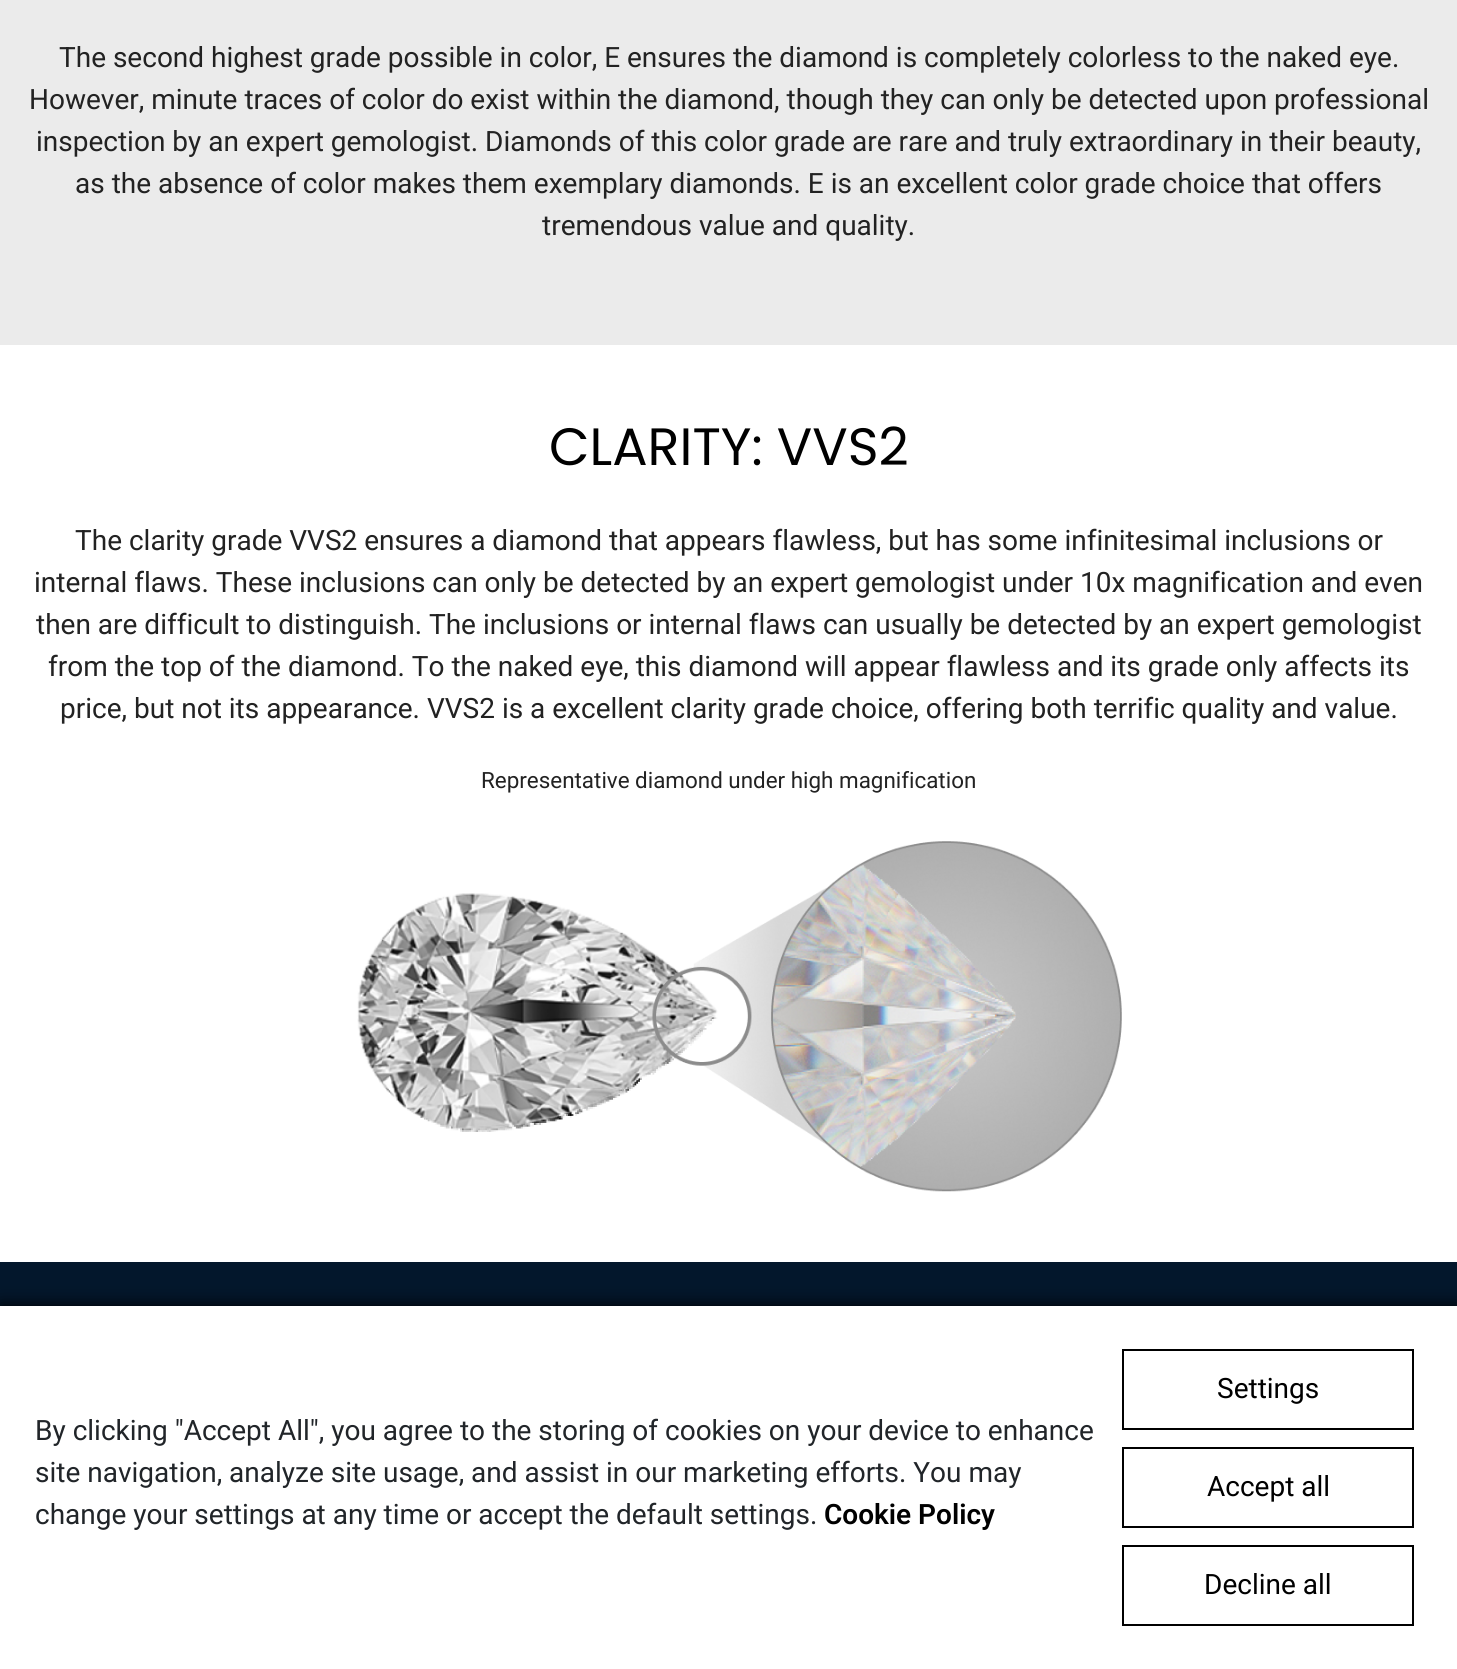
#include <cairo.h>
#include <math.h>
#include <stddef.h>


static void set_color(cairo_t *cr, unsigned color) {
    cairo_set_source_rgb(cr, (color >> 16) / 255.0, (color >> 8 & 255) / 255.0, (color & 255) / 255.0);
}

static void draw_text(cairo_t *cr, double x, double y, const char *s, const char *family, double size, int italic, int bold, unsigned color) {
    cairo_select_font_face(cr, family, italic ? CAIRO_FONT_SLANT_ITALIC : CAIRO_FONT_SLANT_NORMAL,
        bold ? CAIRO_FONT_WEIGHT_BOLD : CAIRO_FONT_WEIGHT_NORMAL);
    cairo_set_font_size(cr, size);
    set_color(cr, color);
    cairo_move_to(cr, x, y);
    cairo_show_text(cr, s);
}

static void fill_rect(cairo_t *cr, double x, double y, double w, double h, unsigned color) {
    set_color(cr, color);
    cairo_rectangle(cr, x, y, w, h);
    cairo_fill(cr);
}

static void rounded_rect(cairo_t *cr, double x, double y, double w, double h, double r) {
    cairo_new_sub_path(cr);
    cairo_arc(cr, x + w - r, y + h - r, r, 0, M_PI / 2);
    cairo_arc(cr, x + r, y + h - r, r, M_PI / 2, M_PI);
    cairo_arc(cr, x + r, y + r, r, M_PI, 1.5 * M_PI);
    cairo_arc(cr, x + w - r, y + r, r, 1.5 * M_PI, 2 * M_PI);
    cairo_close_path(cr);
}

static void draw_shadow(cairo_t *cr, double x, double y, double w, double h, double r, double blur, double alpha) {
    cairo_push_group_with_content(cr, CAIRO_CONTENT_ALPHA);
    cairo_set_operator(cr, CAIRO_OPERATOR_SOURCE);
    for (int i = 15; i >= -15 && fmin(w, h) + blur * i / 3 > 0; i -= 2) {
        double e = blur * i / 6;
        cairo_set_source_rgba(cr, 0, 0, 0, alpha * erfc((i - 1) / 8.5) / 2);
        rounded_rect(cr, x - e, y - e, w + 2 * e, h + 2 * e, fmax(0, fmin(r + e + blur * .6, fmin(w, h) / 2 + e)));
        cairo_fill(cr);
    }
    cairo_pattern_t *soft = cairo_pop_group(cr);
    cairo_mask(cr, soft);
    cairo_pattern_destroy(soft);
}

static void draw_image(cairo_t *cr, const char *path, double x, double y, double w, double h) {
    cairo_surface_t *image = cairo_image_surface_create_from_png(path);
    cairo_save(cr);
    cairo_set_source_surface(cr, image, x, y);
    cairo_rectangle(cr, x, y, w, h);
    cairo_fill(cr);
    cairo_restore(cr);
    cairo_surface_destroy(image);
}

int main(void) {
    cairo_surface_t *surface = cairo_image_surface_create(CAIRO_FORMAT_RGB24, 1457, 1669);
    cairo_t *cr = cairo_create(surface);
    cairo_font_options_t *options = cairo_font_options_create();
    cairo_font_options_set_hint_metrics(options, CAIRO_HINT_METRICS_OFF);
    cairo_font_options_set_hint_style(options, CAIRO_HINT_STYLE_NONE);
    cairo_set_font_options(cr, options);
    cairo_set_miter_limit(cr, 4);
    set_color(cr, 0xFFFFFF);
    cairo_paint(cr);
    fill_rect(cr, 0, 0, 1457, 345, 0xEBEBEB);
    draw_text(cr, 59, 67, "The second highest grade possible in color, E ensures the diamond is completely colorless to the naked eye.", "Roboto", 28, 0, 0, 0x222222);
    draw_text(cr, 29, 109, "However, minute traces of color do exist within the diamond, though they can only be detected upon professional", "Roboto", 28, 0, 0, 0x222222);
    draw_text(cr, 36, 151, "inspection by an expert gemologist. Diamonds of this color grade are rare and truly extraordinary in their beauty,", "Roboto", 28, 0, 0, 0x222222);
    draw_text(cr, 75, 193, "as the absence of color makes them exemplary diamonds. E is an excellent color grade choice that offers", "Roboto", 28, 0, 0, 0x222222);
    draw_text(cr, 542, 235, "tremendous value and quality.", "Roboto", 28, 0, 0, 0x222222);
    draw_text(cr, 549, 465, "CLARITY: VVS2", "Poppins", 52.5, 0, 0, 0x000000);
    draw_text(cr, 75, 550, "The clarity grade VVS2 ensures a diamond that appears flawless, but has some infinitesimal inclusions or", "Roboto", 28, 0, 0, 0x222222);
    draw_text(cr, 34, 592, "internal flaws. These inclusions can only be detected by an expert gemologist under 10x magnification and even", "Roboto", 28, 0, 0, 0x222222);
    draw_text(cr, 36, 634, "then are difficult to distinguish. The inclusions or internal flaws can usually be detected by an expert gemologist", "Roboto", 28, 0, 0, 0x222222);
    draw_text(cr, 48, 676, "from the top of the diamond. To the naked eye, this diamond will appear flawless and its grade only affects its", "Roboto", 28, 0, 0, 0x222222);
    draw_text(cr, 60, 718, "price, but not its appearance. VVS2 is a excellent clarity grade choice, offering both terrific quality and value.", "Roboto", 28, 0, 0, 0x222222);
    draw_text(cr, 481, 788, "Representative diamond under high magnification", "Roboto", 22.4, 0, 0, 0x222222);
    draw_image(cr, "assets/img1.png", 357, 841, 765, 351);
    fill_rect(cr, 0, 1262, 1457, 44, 0x03172C);
    set_color(cr, 0x000000);
    draw_shadow(cr, 0, 1306, 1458, 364, 0, 9, 1);
    fill_rect(cr, 0, 1306, 1457, 363, 0xFFFFFF);
    draw_text(cr, 35, 1440, "By clicking \"Accept All\", you agree to the storing of cookies on your device to enhance", "Roboto", 28, 0, 0, 0x212529);
    draw_text(cr, 35, 1482, "site navigation, analyze site usage, and assist in our marketing efforts. You may", "Roboto", 28, 0, 0, 0x212529);
    draw_text(cr, 35, 1524, "change your settings at any time or accept the default settings.", "Roboto", 28, 0, 0, 0x212529);
    draw_text(cr, 824, 1524, "Cookie Policy", "Roboto SemiBold", 28, 0, 0, 0x000000);
    cairo_rectangle(cr, 1123, 1350, 290, 79);
    cairo_stroke(cr);
    draw_text(cr, 1217, 1398, "Settings", "Roboto", 28, 0, 0, 0x000000);
    cairo_rectangle(cr, 1123, 1448, 290, 79);
    cairo_stroke(cr);
    draw_text(cr, 1207, 1496, "Accept all", "Roboto", 28, 0, 0, 0x000000);
    cairo_rectangle(cr, 1123, 1546, 290, 79);
    cairo_stroke(cr);
    draw_text(cr, 1204, 1594, "Decline all", "Roboto", 28, 0, 0, 0x000000);
    cairo_surface_write_to_png(surface, "output.png");
    cairo_font_options_destroy(options);
    cairo_destroy(cr);
    cairo_surface_destroy(surface);
    return 0;
}
